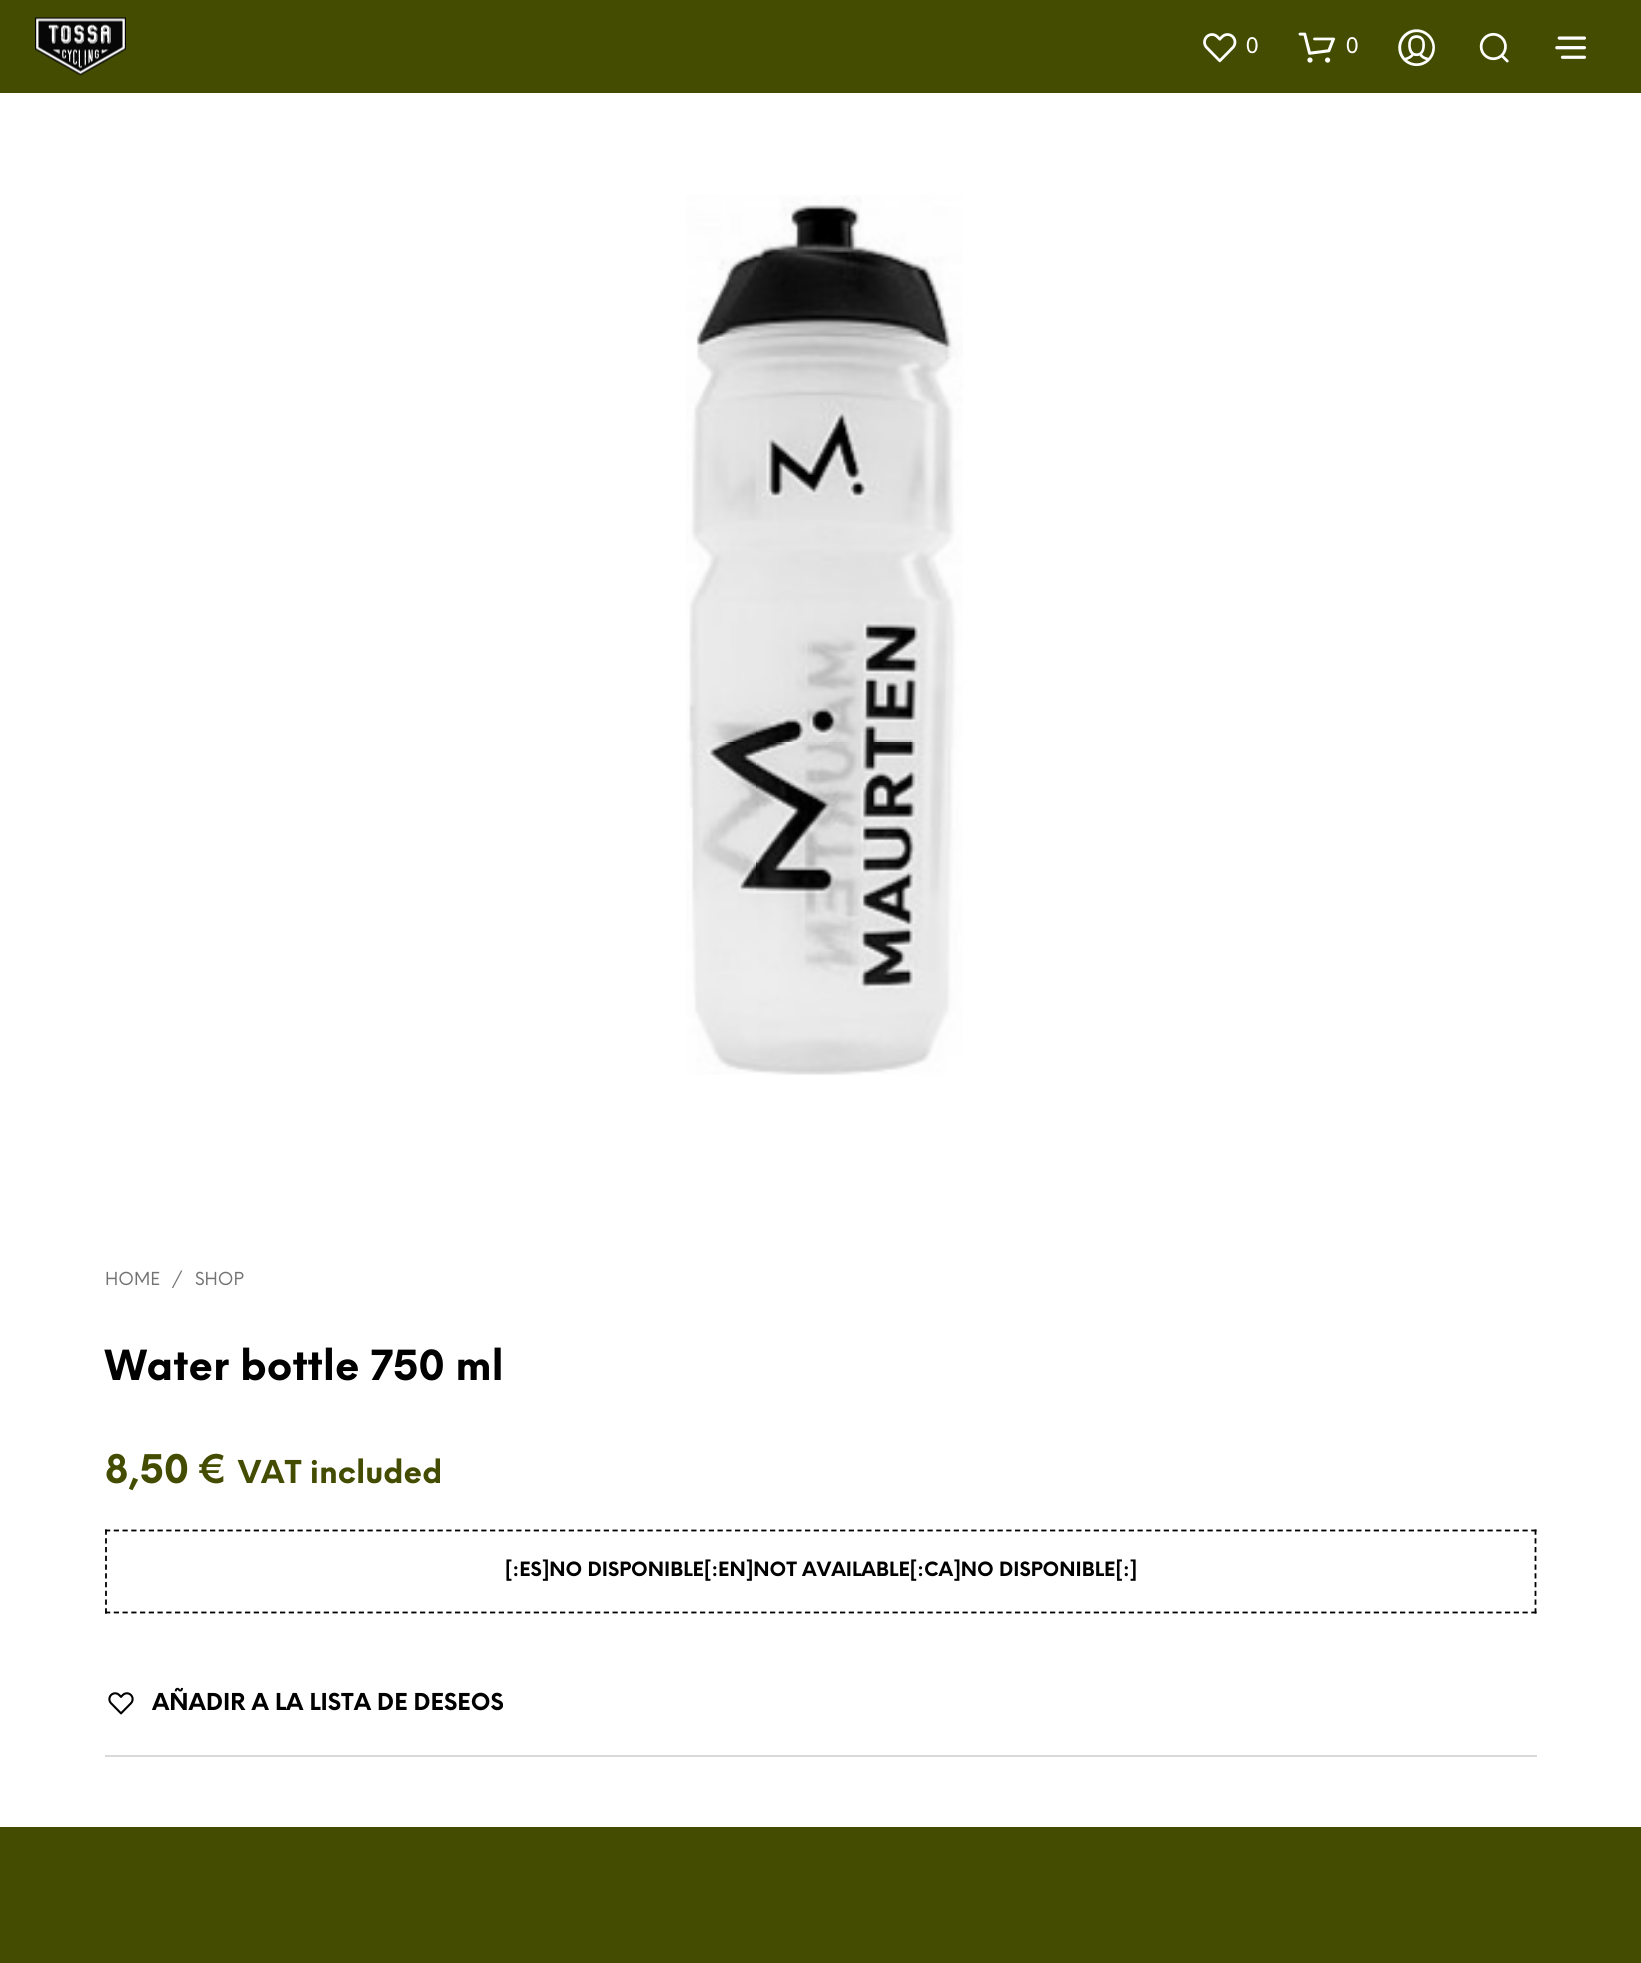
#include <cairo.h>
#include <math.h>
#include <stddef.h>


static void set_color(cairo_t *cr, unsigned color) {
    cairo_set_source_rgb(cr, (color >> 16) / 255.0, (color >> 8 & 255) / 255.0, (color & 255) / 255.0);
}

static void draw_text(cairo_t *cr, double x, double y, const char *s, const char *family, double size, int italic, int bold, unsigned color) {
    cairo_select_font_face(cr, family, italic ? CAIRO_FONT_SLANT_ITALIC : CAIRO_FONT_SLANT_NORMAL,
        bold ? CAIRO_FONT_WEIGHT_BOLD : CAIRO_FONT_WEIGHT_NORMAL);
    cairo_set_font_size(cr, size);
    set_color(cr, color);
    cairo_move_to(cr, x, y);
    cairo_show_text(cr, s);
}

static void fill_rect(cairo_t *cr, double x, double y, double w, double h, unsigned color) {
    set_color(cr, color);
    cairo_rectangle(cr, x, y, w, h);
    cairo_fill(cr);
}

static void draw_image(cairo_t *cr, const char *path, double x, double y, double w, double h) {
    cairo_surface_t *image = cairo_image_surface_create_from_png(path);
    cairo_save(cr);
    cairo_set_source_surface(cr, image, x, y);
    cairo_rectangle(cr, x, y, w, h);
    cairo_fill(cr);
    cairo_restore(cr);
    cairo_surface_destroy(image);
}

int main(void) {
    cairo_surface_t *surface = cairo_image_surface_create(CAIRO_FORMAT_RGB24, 1641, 1963);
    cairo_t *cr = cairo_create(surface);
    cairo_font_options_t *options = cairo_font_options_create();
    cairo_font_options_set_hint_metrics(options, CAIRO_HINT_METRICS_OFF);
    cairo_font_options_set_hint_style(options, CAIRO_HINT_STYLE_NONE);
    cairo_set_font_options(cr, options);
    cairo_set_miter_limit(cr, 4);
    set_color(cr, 0xFFFFFF);
    cairo_paint(cr);
    fill_rect(cr, 0, 0, 1641, 93, 0x434C00);
    draw_image(cr, "assets/img1.png", 35, 17, 91, 59);
    draw_image(cr, "assets/img2.png", 1203, 33, 34, 30);
    draw_text(cr, 1246, 53, "0", "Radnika", 22.75, 0, 0, 0xFFFFFF);
    draw_image(cr, "assets/img3.png", 1298, 32, 38, 31);
    draw_text(cr, 1346, 53, "0", "Radnika", 22.75, 0, 0, 0xFFFFFF);
    draw_image(cr, "assets/img4.png", 1398, 29, 37, 38);
    draw_image(cr, "assets/img5.png", 1479, 32, 30, 31);
    draw_image(cr, "assets/img6.png", 1555, 36, 31, 23);
    draw_image(cr, "assets/img7.png", 686, 195, 277, 880);
    draw_text(cr, 105, 1285, "HOME", "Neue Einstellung", 17.5, 0, 0, 0x737373);
    draw_text(cr, 172, 1285, "/", "Neue Einstellung", 17.5, 0, 0, 0x737373);
    draw_text(cr, 195, 1285, "SHOP", "Neue Einstellung", 17.5, 0, 0, 0x737373);
    draw_text(cr, 105, 1380, "Water bottle 750 ml", "Neue Einstellung", 40.5, 0, 1, 0x000000);
    draw_text(cr, 105, 1483, "8,50 €", "Neue Einstellung", 38.5, 0, 1, 0x434C00);
    draw_text(cr, 238, 1483, "VAT included", "Neue Einstellung", 30.75, 0, 1, 0x434C00);
    cairo_new_path(cr);
    cairo_move_to(cr, 105, 1530.5);
    cairo_line_to(cr, 1536.5, 1530.5);
    set_color(cr, 0x000000);
    cairo_set_line_width(cr, 1.8);
    cairo_set_dash(cr, (double[]){5.25, 3.5}, 2, 0);
    cairo_stroke(cr);
    cairo_new_path(cr);
    cairo_move_to(cr, 1535.5, 1529.5);
    cairo_line_to(cr, 1535.5, 1613.5);
    cairo_stroke(cr);
    cairo_new_path(cr);
    cairo_move_to(cr, 105, 1612.5);
    cairo_line_to(cr, 1536.5, 1612.5);
    cairo_stroke(cr);
    cairo_new_path(cr);
    cairo_move_to(cr, 106, 1529.5);
    cairo_line_to(cr, 106, 1613.5);
    cairo_stroke(cr);
    draw_text(cr, 505, 1576, "[:ES]NO DISPONIBLE[:EN]NOT AVAILABLE[:CA]NO DISPONIBLE[:]", "Neue Einstellung", 19.25, 0, 1, 0x000000);
    draw_image(cr, "assets/img8.png", 108, 1692, 26, 23);
    draw_text(cr, 152, 1710, "AÑADIR A LA LISTA DE DESEOS", "Neue Einstellung", 22.75, 0, 1, 0x000000);
    fill_rect(cr, 105, 1755, 1432, 2, 0xD9D9D9);
    fill_rect(cr, 0, 1827, 1641, 136, 0x434C00);
    cairo_surface_write_to_png(surface, "output.png");
    cairo_font_options_destroy(options);
    cairo_destroy(cr);
    cairo_surface_destroy(surface);
    return 0;
}
